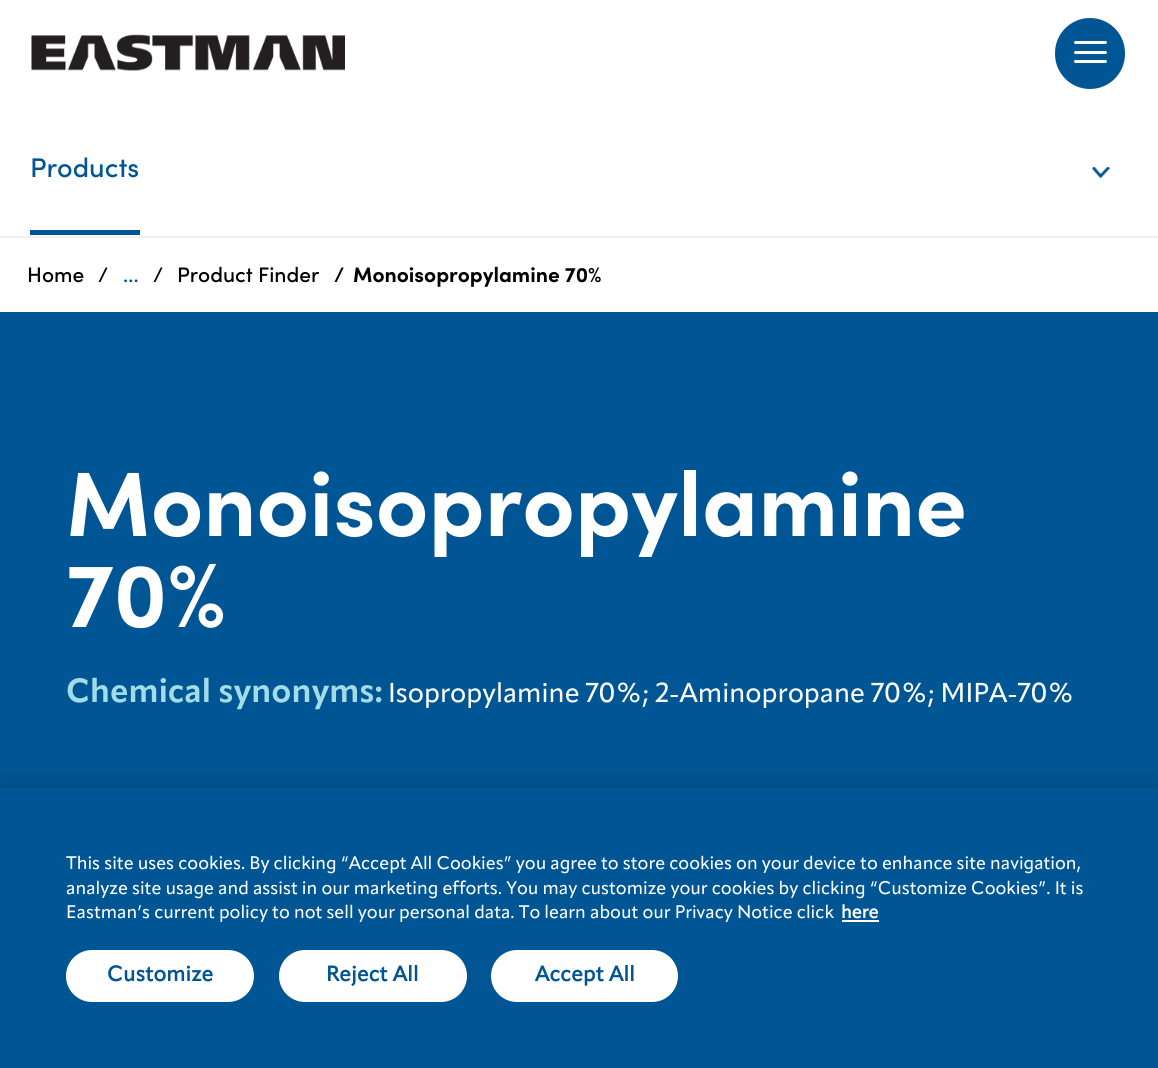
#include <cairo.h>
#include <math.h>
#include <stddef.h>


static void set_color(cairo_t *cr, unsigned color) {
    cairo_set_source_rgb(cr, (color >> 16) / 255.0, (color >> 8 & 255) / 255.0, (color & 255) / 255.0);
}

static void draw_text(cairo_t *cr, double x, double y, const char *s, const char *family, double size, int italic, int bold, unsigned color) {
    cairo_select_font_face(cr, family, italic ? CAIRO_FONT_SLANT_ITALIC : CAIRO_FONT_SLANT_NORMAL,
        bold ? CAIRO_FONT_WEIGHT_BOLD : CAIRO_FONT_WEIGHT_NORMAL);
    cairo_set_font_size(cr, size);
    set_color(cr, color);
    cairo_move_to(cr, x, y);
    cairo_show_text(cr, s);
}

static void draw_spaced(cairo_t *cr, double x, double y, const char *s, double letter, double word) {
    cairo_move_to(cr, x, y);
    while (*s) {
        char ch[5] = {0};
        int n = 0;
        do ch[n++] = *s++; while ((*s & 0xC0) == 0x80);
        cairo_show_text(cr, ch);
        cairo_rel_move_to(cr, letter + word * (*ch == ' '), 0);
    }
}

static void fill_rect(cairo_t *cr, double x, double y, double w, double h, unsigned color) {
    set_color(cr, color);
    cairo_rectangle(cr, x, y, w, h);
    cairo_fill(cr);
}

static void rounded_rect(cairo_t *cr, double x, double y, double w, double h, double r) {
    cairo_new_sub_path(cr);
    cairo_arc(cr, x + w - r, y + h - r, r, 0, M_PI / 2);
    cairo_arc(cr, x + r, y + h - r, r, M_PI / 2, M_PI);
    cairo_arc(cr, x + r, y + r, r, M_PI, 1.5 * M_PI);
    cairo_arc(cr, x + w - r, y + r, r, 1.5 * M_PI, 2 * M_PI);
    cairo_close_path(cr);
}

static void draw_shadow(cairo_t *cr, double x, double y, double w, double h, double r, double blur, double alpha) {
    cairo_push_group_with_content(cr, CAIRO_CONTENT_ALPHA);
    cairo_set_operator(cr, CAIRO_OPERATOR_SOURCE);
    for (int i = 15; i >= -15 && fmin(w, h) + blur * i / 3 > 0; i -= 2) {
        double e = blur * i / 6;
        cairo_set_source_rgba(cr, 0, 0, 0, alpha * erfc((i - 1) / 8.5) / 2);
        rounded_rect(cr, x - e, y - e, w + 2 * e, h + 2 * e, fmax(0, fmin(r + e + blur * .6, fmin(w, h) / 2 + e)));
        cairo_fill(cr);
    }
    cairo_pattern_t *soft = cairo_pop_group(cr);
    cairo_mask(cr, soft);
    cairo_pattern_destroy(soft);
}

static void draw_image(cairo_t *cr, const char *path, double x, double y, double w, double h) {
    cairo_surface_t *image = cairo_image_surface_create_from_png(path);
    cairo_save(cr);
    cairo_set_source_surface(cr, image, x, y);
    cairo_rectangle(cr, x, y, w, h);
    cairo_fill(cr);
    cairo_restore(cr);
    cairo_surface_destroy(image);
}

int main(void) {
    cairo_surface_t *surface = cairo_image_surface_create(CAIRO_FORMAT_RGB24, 1158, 1068);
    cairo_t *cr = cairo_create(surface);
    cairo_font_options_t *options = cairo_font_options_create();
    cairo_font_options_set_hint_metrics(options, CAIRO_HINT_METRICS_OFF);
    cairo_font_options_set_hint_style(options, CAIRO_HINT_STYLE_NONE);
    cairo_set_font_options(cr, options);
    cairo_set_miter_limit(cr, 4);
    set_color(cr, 0xFFFFFF);
    cairo_paint(cr);
    draw_image(cr, "assets/img1.png", 31, 34, 314, 37);
    set_color(cr, 0x005695);
    rounded_rect(cr, 1055, 18, 70, 71, 35);
    cairo_fill(cr);
    set_color(cr, 0xFFFFFF);
    rounded_rect(cr, 1074, 41, 33, 3, 1.5);
    cairo_fill(cr);
    rounded_rect(cr, 1074, 51, 33, 3, 1.5);
    cairo_fill(cr);
    rounded_rect(cr, 1074, 60, 33, 3, 1.5);
    cairo_fill(cr);
    fill_rect(cr, 30, 230, 110, 5, 0x005695);
    draw_text(cr, 30, 177, "Products", "Sofia Medium", 27, 0, 0, 0x005695);
    draw_image(cr, "assets/img2.png", 1092, 167, 19, 11);
    fill_rect(cr, 0, 236, 1158, 2, 0xF0F0F0);
    draw_text(cr, 27, 282, "Home", "Sofia Medium", 21, 0, 0, 0x000000);
    draw_text(cr, 98, 282, "/", "Sofia Medium", 21, 0, 0, 0x000000);
    draw_text(cr, 123, 282, "...", "Sofia Medium", 21, 0, 0, 0x005695);
    draw_text(cr, 153, 282, "/", "Sofia Medium", 21, 0, 0, 0x000000);
    draw_text(cr, 177, 282, "Product Finder", "Sofia Medium", 21, 0, 0, 0x000000);
    draw_text(cr, 334, 282, "/", "Sofia", 21, 0, 1, 0x000000);
    draw_text(cr, 353, 282, "Monoisopropylamine 70%", "Sofia", 21, 0, 1, 0x000000);
    fill_rect(cr, 0, 312, 1158, 476, 0x005695);
    draw_text(cr, 66, 536, "Monoisopropylamine", "Sofia", 91.5, 0, 1, 0xFFFFFF);
    draw_text(cr, 66, 627, "70%", "Sofia", 91.5, 0, 1, 0xFFFFFF);
    draw_text(cr, 66, 702, "Chemical synonyms:", "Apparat", 33, 0, 1, 0xA2DCE6);
    draw_text(cr, 388, 702, "Isopropylamine 70%; 2-Aminopropane 70%; MIPA-70%", "Apparat Medium", 27, 0, 0, 0xFFFFFF);
    set_color(cr, 0x000000);
    draw_shadow(cr, 0, 788, 1158, 280, 0, 13.5, 0.2);
    fill_rect(cr, 0, 788, 1158, 280, 0x005695);
    draw_text(cr, 66, 869, "This site uses cookies. By clicking “Accept All Cookies” you agree to store cookies on your device to enhance site navigation,", "Apparat Medium", 18, 0, 0, 0xFFFFFF);
    draw_text(cr, 66, 894, "analyze site usage and assist in our marketing efforts. You may customize your cookies by clicking “Customize Cookies”. It is", "Apparat Medium", 18, 0, 0, 0xFFFFFF);
    draw_text(cr, 66, 918, "Eastman’s current policy to not sell your personal data. To learn about our Privacy Notice click", "Apparat Medium", 18, 0, 0, 0xFFFFFF);
    draw_text(cr, 841, 918, "here", "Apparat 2", 18, 0, 1, 0xFFFFFF);
    fill_rect(cr, 842, 920, 37, 2, 0xFFFFFF);
    rounded_rect(cr, 66, 950, 188, 52, 26);
    cairo_fill(cr);
    cairo_set_font_size(cr, 21);
    set_color(cr, 0x005695);
    draw_spaced(cr, 107, 981, "Customize", 0.25, 0);
    set_color(cr, 0xFFFFFF);
    rounded_rect(cr, 279, 950, 188, 52, 26);
    cairo_fill(cr);
    set_color(cr, 0x005695);
    draw_spaced(cr, 326, 981, "Reject All", 0.25, 0);
    set_color(cr, 0xFFFFFF);
    rounded_rect(cr, 491, 950, 187, 52, 26);
    cairo_fill(cr);
    set_color(cr, 0x005695);
    draw_spaced(cr, 535, 981, "Accept All", 0.25, 0);
    cairo_surface_write_to_png(surface, "output.png");
    cairo_font_options_destroy(options);
    cairo_destroy(cr);
    cairo_surface_destroy(surface);
    return 0;
}
